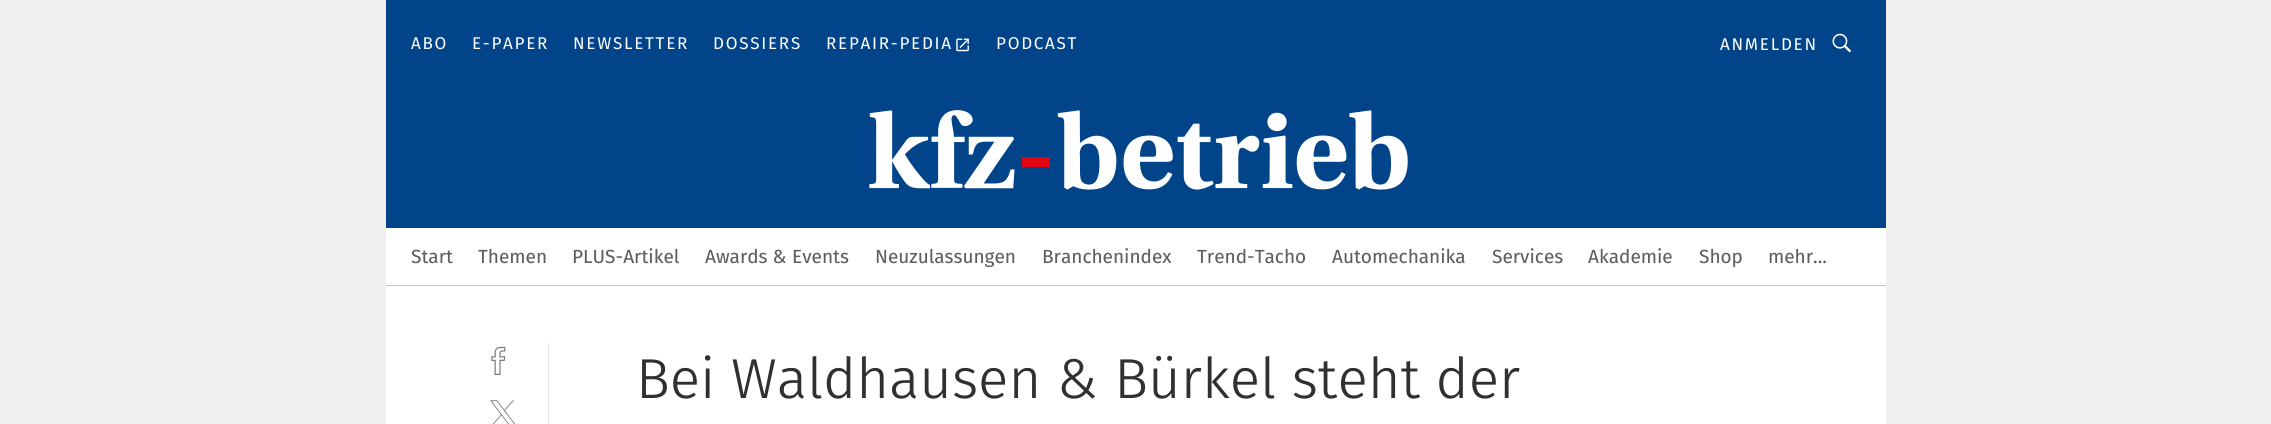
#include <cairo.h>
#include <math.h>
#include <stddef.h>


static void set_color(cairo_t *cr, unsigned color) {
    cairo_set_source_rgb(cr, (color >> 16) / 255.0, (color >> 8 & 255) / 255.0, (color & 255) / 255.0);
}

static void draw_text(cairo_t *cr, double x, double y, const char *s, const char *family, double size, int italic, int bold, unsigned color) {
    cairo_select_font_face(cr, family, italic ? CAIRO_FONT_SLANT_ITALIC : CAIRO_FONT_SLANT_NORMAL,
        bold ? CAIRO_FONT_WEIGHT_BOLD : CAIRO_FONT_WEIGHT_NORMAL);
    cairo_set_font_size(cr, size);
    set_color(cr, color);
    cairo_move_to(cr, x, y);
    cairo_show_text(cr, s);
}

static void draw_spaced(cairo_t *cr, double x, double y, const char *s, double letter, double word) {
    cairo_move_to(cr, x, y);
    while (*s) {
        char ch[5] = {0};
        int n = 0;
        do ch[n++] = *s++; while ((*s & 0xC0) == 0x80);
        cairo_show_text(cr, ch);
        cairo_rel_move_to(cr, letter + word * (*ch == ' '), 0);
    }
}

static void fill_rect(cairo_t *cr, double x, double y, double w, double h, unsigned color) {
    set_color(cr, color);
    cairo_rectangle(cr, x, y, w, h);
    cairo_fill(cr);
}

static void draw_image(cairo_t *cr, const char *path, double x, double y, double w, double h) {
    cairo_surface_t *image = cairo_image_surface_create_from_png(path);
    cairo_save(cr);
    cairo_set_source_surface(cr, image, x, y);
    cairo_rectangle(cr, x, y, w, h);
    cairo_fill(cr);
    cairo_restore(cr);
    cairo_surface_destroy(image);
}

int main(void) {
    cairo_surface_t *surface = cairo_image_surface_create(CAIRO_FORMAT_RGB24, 2271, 424);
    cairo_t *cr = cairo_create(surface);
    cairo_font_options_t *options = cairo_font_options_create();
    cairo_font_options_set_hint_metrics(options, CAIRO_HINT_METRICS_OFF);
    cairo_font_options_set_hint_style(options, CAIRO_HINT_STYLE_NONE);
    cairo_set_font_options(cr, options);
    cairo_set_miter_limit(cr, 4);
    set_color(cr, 0xEFEFEF);
    cairo_paint(cr);
    fill_rect(cr, 386, 286, 1500, 138, 0xFFFFFF);
    fill_rect(cr, 386, 285, 1500, 1, 0xC6C6C6);
    fill_rect(cr, 386, 0, 1500, 228, 0x014489);
    cairo_select_font_face(cr, "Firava", CAIRO_FONT_SLANT_NORMAL, CAIRO_FONT_WEIGHT_NORMAL);
    cairo_set_font_size(cr, 17);
    set_color(cr, 0xFFFFFF);
    draw_spaced(cr, 411, 49, "ABO", 1.75, 0);
    draw_spaced(cr, 472, 49, "E-PAPER", 1.75, 0);
    draw_spaced(cr, 573, 49, "NEWSLETTER", 1.75, 0);
    draw_spaced(cr, 713, 49, "DOSSIERS", 1.75, 0);
    draw_spaced(cr, 826, 49, "REPAIR-PEDIA", 1.75, 0);
    draw_image(cr, "assets/img1.png", 956, 38, 13, 14);
    draw_spaced(cr, 996, 49, "PODCAST", 1.75, 0);
    draw_spaced(cr, 1720, 50, "ANMELDEN", 1.75, 0);
    draw_image(cr, "assets/img2.png", 1832, 33, 20, 20);
    draw_image(cr, "assets/img3.png", 869, 110, 539, 80);
    fill_rect(cr, 386, 228, 1500, 57, 0xFFFFFF);
    draw_text(cr, 411, 263, "Start", "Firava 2", 19, 0, 0, 0x5E5E5E);
    draw_text(cr, 478, 263, "Themen", "Firava 2", 19, 0, 0, 0x5E5E5E);
    draw_text(cr, 572, 263, "PLUS-Artikel", "Firava 2", 19, 0, 0, 0x5E5E5E);
    draw_text(cr, 705, 263, "Awards & Events", "Firava 2", 19, 0, 0, 0x5E5E5E);
    draw_text(cr, 875, 263, "Neuzulassungen", "Firava 2", 19, 0, 0, 0x5E5E5E);
    draw_text(cr, 1042, 263, "Branchenindex", "Firava 2", 19, 0, 0, 0x5E5E5E);
    draw_text(cr, 1197, 263, "Trend-Tacho", "Firava 2", 19, 0, 0, 0x5E5E5E);
    draw_text(cr, 1332, 263, "Automechanika", "Firava 2", 19, 0, 0, 0x5E5E5E);
    draw_text(cr, 1492, 263, "Services", "Firava 2", 19, 0, 0, 0x5E5E5E);
    draw_text(cr, 1588, 263, "Akademie", "Firava 2", 19, 0, 0, 0x5E5E5E);
    draw_text(cr, 1699, 263, "Shop", "Firava 2", 19, 0, 0, 0x5E5E5E);
    draw_text(cr, 1768, 263, "mehr...", "Firava 2", 19, 0, 0, 0x5E5E5E);
    fill_rect(cr, 548, 343, 1, 81, 0xE2E2E2);
    draw_image(cr, "assets/img4.png", 491, 346, 15, 29);
    draw_image(cr, "assets/img5.png", 490, 400, 25, 24);
    draw_text(cr, 636, 398, "Bei Waldhausen & Bürkel steht der", "Firava Light", 56.25, 0, 0, 0x303030);
    cairo_surface_write_to_png(surface, "output.png");
    cairo_font_options_destroy(options);
    cairo_destroy(cr);
    cairo_surface_destroy(surface);
    return 0;
}
